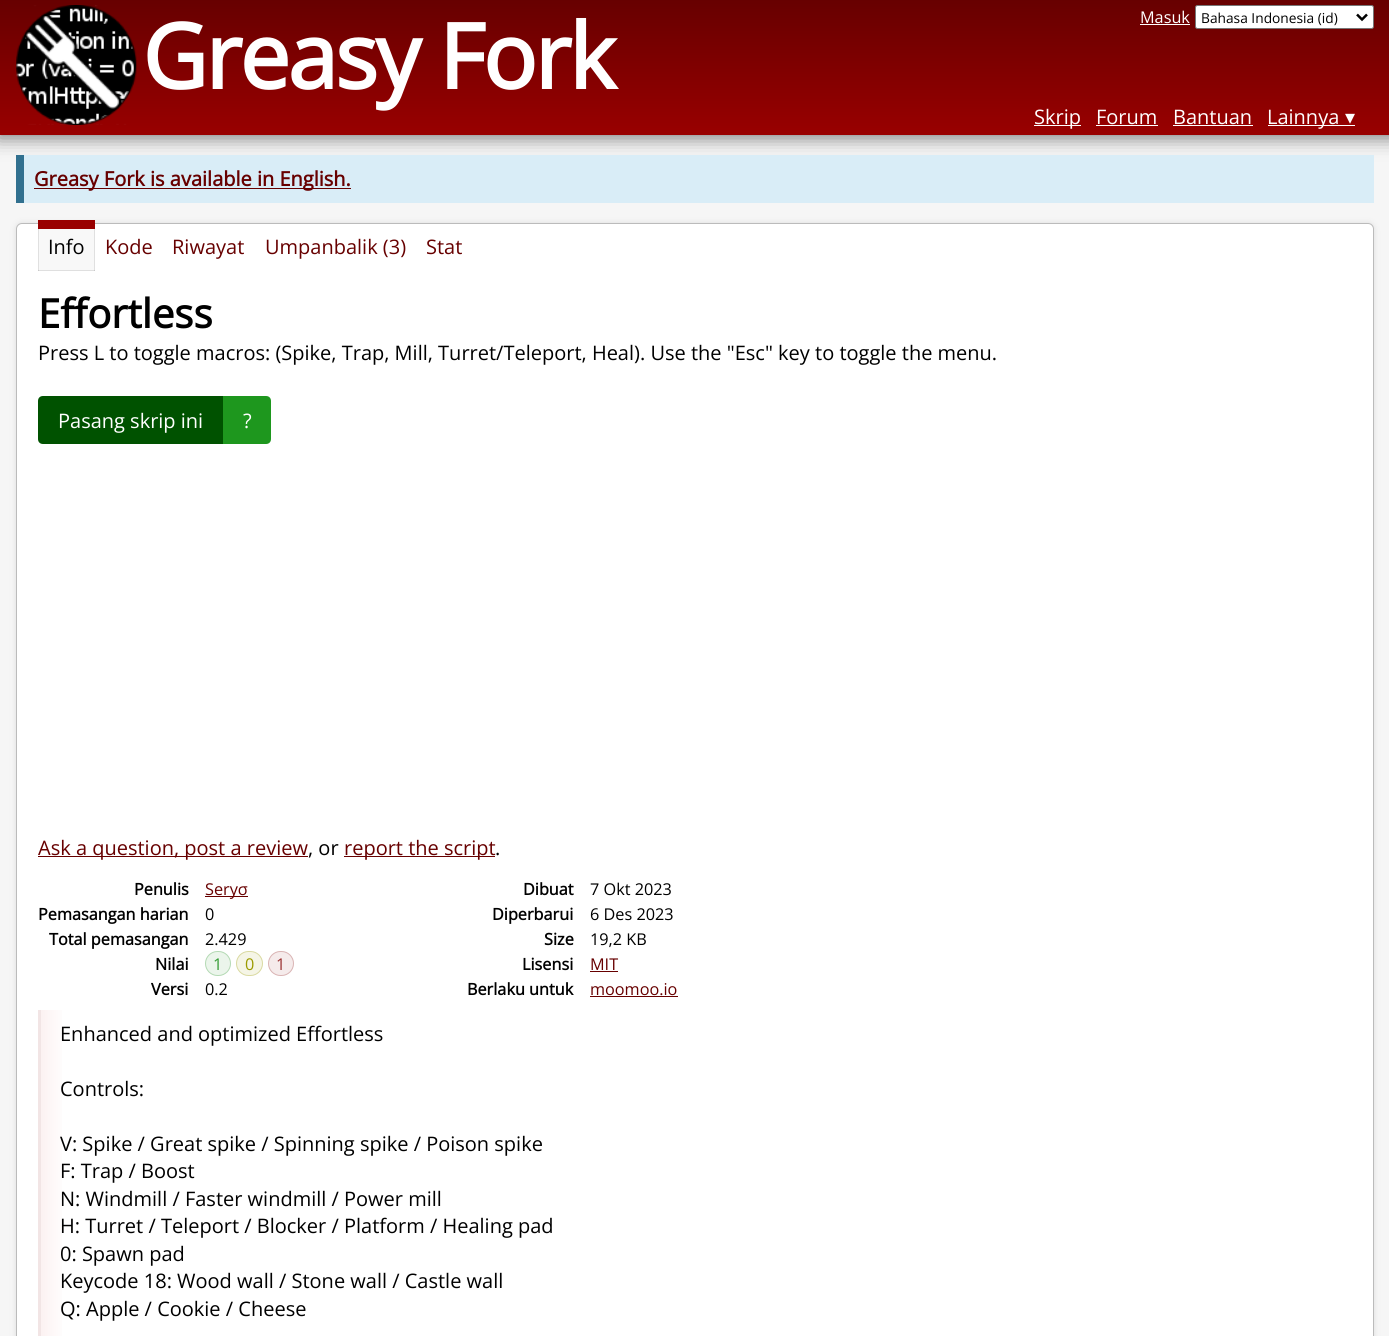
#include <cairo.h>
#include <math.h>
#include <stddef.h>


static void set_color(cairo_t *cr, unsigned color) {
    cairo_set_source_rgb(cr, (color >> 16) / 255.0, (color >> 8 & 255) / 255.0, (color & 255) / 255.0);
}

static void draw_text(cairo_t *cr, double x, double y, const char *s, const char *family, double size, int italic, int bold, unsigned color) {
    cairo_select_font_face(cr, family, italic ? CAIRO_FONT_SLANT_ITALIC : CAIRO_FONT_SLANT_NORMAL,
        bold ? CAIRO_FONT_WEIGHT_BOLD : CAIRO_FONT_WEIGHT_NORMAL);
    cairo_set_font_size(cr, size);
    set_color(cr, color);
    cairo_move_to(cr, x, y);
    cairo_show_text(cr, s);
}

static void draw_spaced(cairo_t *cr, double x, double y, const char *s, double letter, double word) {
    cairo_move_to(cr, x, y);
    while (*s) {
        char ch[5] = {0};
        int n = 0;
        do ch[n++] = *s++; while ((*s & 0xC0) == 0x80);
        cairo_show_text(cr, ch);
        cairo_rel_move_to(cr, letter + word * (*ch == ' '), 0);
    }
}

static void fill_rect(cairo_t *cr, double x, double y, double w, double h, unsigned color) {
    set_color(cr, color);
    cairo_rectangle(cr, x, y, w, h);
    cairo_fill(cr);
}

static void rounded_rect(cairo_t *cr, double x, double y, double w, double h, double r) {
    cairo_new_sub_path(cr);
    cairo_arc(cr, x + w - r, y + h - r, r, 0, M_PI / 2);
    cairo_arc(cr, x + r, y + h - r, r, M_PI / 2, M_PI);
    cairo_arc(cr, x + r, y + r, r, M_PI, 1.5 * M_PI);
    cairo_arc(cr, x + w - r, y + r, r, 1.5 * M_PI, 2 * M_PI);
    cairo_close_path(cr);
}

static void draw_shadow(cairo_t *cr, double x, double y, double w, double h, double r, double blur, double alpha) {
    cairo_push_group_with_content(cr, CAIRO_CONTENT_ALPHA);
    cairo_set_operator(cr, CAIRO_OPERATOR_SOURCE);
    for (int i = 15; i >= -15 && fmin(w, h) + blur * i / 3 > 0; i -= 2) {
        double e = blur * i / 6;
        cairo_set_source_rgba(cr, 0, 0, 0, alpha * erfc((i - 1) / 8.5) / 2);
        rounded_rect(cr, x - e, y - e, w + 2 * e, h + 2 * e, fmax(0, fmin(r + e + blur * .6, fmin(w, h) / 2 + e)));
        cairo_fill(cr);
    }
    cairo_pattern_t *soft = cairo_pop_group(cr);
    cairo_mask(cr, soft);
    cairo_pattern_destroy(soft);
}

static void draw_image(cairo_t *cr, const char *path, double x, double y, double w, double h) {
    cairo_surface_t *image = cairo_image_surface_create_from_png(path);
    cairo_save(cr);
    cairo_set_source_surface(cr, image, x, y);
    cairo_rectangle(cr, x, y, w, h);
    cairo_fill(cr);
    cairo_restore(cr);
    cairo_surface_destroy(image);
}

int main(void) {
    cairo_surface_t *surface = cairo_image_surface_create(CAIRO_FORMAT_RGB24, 1389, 1336);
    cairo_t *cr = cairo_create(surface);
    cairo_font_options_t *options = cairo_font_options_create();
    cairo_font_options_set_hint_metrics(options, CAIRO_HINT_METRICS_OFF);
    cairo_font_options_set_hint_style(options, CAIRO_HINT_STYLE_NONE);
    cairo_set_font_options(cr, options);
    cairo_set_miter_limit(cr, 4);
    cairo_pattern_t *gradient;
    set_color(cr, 0xF6F6F6);
    cairo_paint(cr);
    set_color(cr, 0x000000);
    draw_shadow(cr, -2, -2, 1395, 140, 0, 9.5, 0.5);
    gradient = cairo_pattern_create_linear(695, 0, 695, 135);
    cairo_pattern_add_color_stop_rgba(gradient, 0, 0.404, 0, 0, 1);
    cairo_pattern_add_color_stop_rgba(gradient, 1, 0.6, 0, 0, 1);
    cairo_set_source(cr, gradient);
    cairo_pattern_destroy(gradient);
    cairo_rectangle(cr, 0, 0, 1389, 135);
    cairo_fill(cr);
    draw_image(cr, "assets/img1.png", 16, 5, 121, 120);
    cairo_select_font_face(cr, "Open Sans", CAIRO_FONT_SLANT_NORMAL, CAIRO_FONT_WEIGHT_BOLD);
    cairo_set_font_size(cr, 90);
    set_color(cr, 0xFFFFFF);
    draw_spaced(cr, 142, 89, "Greasy Fork", -2.5, 0);
    draw_text(cr, 1140, 23, "Masuk", "Open Sans", 16.25, 0, 0, 0xFFFFFF);
    fill_rect(cr, 1140, 24, 50, 1, 0xFFFFFF);
    rounded_rect(cr, 1195.5, 5.5, 178, 23, 2);
    cairo_fill_preserve(cr);
    set_color(cr, 0x767676);
    cairo_set_line_width(cr, 1);
    cairo_stroke(cr);
    cairo_new_path(cr);
    cairo_move_to(cr, 1357, 14.5);
    cairo_line_to(cr, 1362, 19.5);
    cairo_line_to(cr, 1367, 14.5);
    set_color(cr, 0x000000);
    cairo_set_line_width(cr, 2.5);
    cairo_stroke(cr);
    draw_text(cr, 1201, 23, "Bahasa Indonesia (id)", "Open Sans", 13.75, 0, 0, 0x000000);
    fill_rect(cr, 1034, 125, 47, 1, 0xFFFFFF);
    draw_text(cr, 1034, 124, "Skrip", "Open Sans", 20, 0, 0, 0xFFFFFF);
    draw_text(cr, 1096, 124, "Forum", "Open Sans", 20, 0, 0, 0xFFFFFF);
    fill_rect(cr, 1096, 125, 62, 1, 0xFFFFFF);
    draw_text(cr, 1173, 124, "Bantuan", "Open Sans", 20, 0, 0, 0xFFFFFF);
    fill_rect(cr, 1173, 125, 80, 1, 0xFFFFFF);
    fill_rect(cr, 1268, 125, 87, 1, 0xFFFFFF);
    draw_text(cr, 1267, 124, "Lainnya", "Open Sans", 20, 0, 0, 0xFFFFFF);
    draw_text(cr, 1345, 124, "▾", "DejaVu Sans", 20, 0, 0, 0xFFFFFF);
    fill_rect(cr, 24, 155, 1350, 48, 0xD9EDF7);
    fill_rect(cr, 16, 155, 8, 48, 0x31708F);
    fill_rect(cr, 34, 188, 317, 1, 0x670000);
    draw_text(cr, 34, 186, "Greasy Fork is available in English.", "Open Sans", 20, 0, 1, 0x670000);
    set_color(cr, 0xDDDDDD);
    draw_shadow(cr, 16, 223, 1358, 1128, 6, 3, 1);
    set_color(cr, 0xFFFFFF);
    rounded_rect(cr, 16.5, 223.5, 1357, 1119, 5.5);
    cairo_fill_preserve(cr);
    set_color(cr, 0xBBBBBB);
    cairo_set_line_width(cr, 1);
    cairo_stroke(cr);
    cairo_set_source_rgba(cr, 0, 0, 0, 0.03);
    cairo_rectangle(cr, 38, 229, 57, 41);
    cairo_fill(cr);
    fill_rect(cr, 38, 270, 57, 1, 0xDFDFDF);
    cairo_set_source_rgba(cr, 0, 0, 0, 0.1);
    cairo_rectangle(cr, 94, 229, 1, 42);
    cairo_fill(cr);
    cairo_rectangle(cr, 38, 229, 1, 42);
    cairo_fill(cr);
    fill_rect(cr, 38, 220, 57, 9, 0x990000);
    draw_text(cr, 48, 254, "Info", "Open Sans", 20, 0, 0, 0x000000);
    draw_text(cr, 105, 254, "Kode", "Open Sans", 20, 0, 0, 0x670000);
    draw_text(cr, 172, 254, "Riwayat", "Open Sans", 20, 0, 0, 0x670000);
    draw_text(cr, 265, 254, "Umpanbalik (3)", "Open Sans", 20, 0, 0, 0x670000);
    draw_text(cr, 426, 254, "Stat", "Open Sans", 20, 0, 0, 0x670000);
    draw_text(cr, 38, 328, "Effortless", "Open Sans", 40, 0, 1, 0x000000);
    draw_text(cr, 38, 360, "Press L to toggle macros: (Spike, Trap, Mill, Turret/Teleport, Heal). Use the \"Esc\" key to toggle the menu.", "Open Sans", 20, 0, 0, 0x000000);
    set_color(cr, 0x005200);
    cairo_new_path(cr);
    cairo_move_to(cr, 43, 396);
    cairo_line_to(cr, 223, 396);
    cairo_line_to(cr, 223, 444);
    cairo_line_to(cr, 43, 444);
    cairo_curve_to(cr, 40, 444, 38, 442, 38, 439);
    cairo_line_to(cr, 38, 401);
    cairo_curve_to(cr, 38, 398, 40, 396, 43, 396);
    cairo_close_path(cr);
    cairo_fill(cr);
    draw_text(cr, 58, 428, "Pasang skrip ini", "Open Sans", 20, 0, 0, 0xFFFFFF);
    set_color(cr, 0x1E971E);
    cairo_new_path(cr);
    cairo_move_to(cr, 223, 396);
    cairo_line_to(cr, 266, 396);
    cairo_curve_to(cr, 269, 396, 271, 398, 271, 401);
    cairo_line_to(cr, 271, 439);
    cairo_curve_to(cr, 271, 442, 269, 444, 266, 444);
    cairo_line_to(cr, 223, 444);
    cairo_close_path(cr);
    cairo_fill(cr);
    draw_text(cr, 243, 428, "?", "Open Sans", 20, 0, 0, 0xFFFFFF);
    fill_rect(cr, 38, 856, 270, 1, 0x670000);
    draw_text(cr, 38, 855, "Ask a question, post a review", "Open Sans", 20, 0, 0, 0x670000);
    draw_text(cr, 308, 855, ", or", "Open Sans", 20, 0, 0, 0x000000);
    fill_rect(cr, 344, 856, 151, 1, 0x670000);
    draw_text(cr, 344, 855, "report the script", "Open Sans", 20, 0, 0, 0x670000);
    draw_text(cr, 495, 855, ".", "Open Sans", 20, 0, 0, 0x000000);
    draw_text(cr, 134, 895, "Penulis", "Open Sans", 16.25, 0, 1, 0x000000);
    fill_rect(cr, 205, 896, 43, 1, 0x670000);
    draw_text(cr, 205, 895, "Seryσ", "Open Sans", 16.25, 0, 0, 0x670000);
    draw_text(cr, 523, 895, "Dibuat", "Open Sans", 16.25, 0, 1, 0x000000);
    draw_text(cr, 590, 895, "7 Okt 2023", "Open Sans", 16.25, 0, 0, 0x000000);
    draw_text(cr, 38, 920, "Pemasangan harian", "Open Sans", 16.25, 0, 1, 0x000000);
    draw_text(cr, 205, 920, "0", "Open Sans", 16.25, 0, 0, 0x000000);
    draw_text(cr, 492, 920, "Diperbarui", "Open Sans", 16.25, 0, 1, 0x000000);
    draw_text(cr, 590, 920, "6 Des 2023", "Open Sans", 16.25, 0, 0, 0x000000);
    draw_text(cr, 49, 945, "Total pemasangan", "Open Sans", 16.25, 0, 1, 0x000000);
    draw_text(cr, 205, 945, "2.429", "Open Sans", 16.25, 0, 0, 0x000000);
    draw_text(cr, 544, 945, "Size", "Open Sans", 16.25, 0, 1, 0x000000);
    draw_text(cr, 590, 945, "19,2 KB", "Open Sans", 16.25, 0, 0, 0x000000);
    draw_text(cr, 155, 970, "Nilai", "Open Sans", 16.25, 0, 1, 0x000000);
    set_color(cr, 0xEBF5EB);
    rounded_rect(cr, 205, 951, 26, 25, 12.5);
    cairo_fill(cr);
    rounded_rect(cr, 205.5, 951.5, 25, 24, 12);
    cairo_set_source_rgba(cr, 0.2, 0.608, 0.2, 0.3);
    cairo_stroke(cr);
    draw_text(cr, 213, 970, "1", "Open Sans", 16.25, 0, 0, 0x339B33);
    set_color(cr, 0xF5F5E6);
    rounded_rect(cr, 236, 951, 27, 25, 12.5);
    cairo_fill(cr);
    rounded_rect(cr, 236.5, 951.5, 26, 24, 12);
    cairo_set_source_rgba(cr, 0.608, 0.608, 0, 0.3);
    cairo_stroke(cr);
    draw_text(cr, 245, 970, "0", "Open Sans", 16.25, 0, 0, 0x9B9B00);
    set_color(cr, 0xF5EBEB);
    rounded_rect(cr, 268, 951, 26, 25, 12.5);
    cairo_fill(cr);
    rounded_rect(cr, 268.5, 951.5, 25, 24, 12);
    cairo_set_source_rgba(cr, 0.608, 0.2, 0.2, 0.3);
    cairo_stroke(cr);
    draw_text(cr, 276, 970, "1", "Open Sans", 16.25, 0, 0, 0x9B3333);
    draw_text(cr, 522, 970, "Lisensi", "Open Sans", 16.25, 0, 1, 0x000000);
    draw_text(cr, 590, 970, "MIT", "Open Sans", 16.25, 0, 0, 0x670000);
    fill_rect(cr, 590, 971, 28, 1, 0x670000);
    draw_text(cr, 151, 995, "Versi", "Open Sans", 16.25, 0, 1, 0x000000);
    draw_text(cr, 205, 995, "0.2", "Open Sans", 16.25, 0, 0, 0x000000);
    draw_text(cr, 467, 995, "Berlaku untuk", "Open Sans", 16.25, 0, 1, 0x000000);
    draw_text(cr, 590, 995, "moomoo.io", "Open Sans", 16.25, 0, 0, 0x670000);
    fill_rect(cr, 590, 996, 88, 1, 0x670000);
    gradient = cairo_pattern_create_linear(40, 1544, 1353, 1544);
    cairo_pattern_add_color_stop_rgba(gradient, 0, 0.988, 0.945, 0.945, 1);
    cairo_pattern_add_color_stop_rgba(gradient, 0.02, 1, 1, 1, 1);
    cairo_set_source(cr, gradient);
    cairo_pattern_destroy(gradient);
    cairo_rectangle(cr, 41, 1010, 21, 326);
    cairo_fill(cr);
    fill_rect(cr, 38, 1010, 3, 326, 0xF2E5E5);
    draw_text(cr, 60, 1041, "Enhanced and optimized Effortless", "Open Sans", 20, 0, 0, 0x000000);
    draw_text(cr, 60, 1096, "Controls:", "Open Sans", 20, 0, 0, 0x000000);
    draw_text(cr, 60, 1151, "V: Spike / Great spike / Spinning spike / Poison spike", "Open Sans", 20, 0, 0, 0x000000);
    draw_text(cr, 60, 1178, "F: Trap / Boost", "Open Sans", 20, 0, 0, 0x000000);
    draw_text(cr, 60, 1206, "N: Windmill / Faster windmill / Power mill", "Open Sans", 20, 0, 0, 0x000000);
    draw_text(cr, 60, 1233, "H: Turret / Teleport / Blocker / Platform / Healing pad", "Open Sans", 20, 0, 0, 0x000000);
    draw_text(cr, 60, 1261, "0: Spawn pad", "Open Sans", 20, 0, 0, 0x000000);
    draw_text(cr, 60, 1288, "Keycode 18: Wood wall / Stone wall / Castle wall", "Open Sans", 20, 0, 0, 0x000000);
    draw_text(cr, 60, 1316, "Q: Apple / Cookie / Cheese", "Open Sans", 20, 0, 0, 0x000000);
    cairo_surface_write_to_png(surface, "output.png");
    cairo_font_options_destroy(options);
    cairo_destroy(cr);
    cairo_surface_destroy(surface);
    return 0;
}
